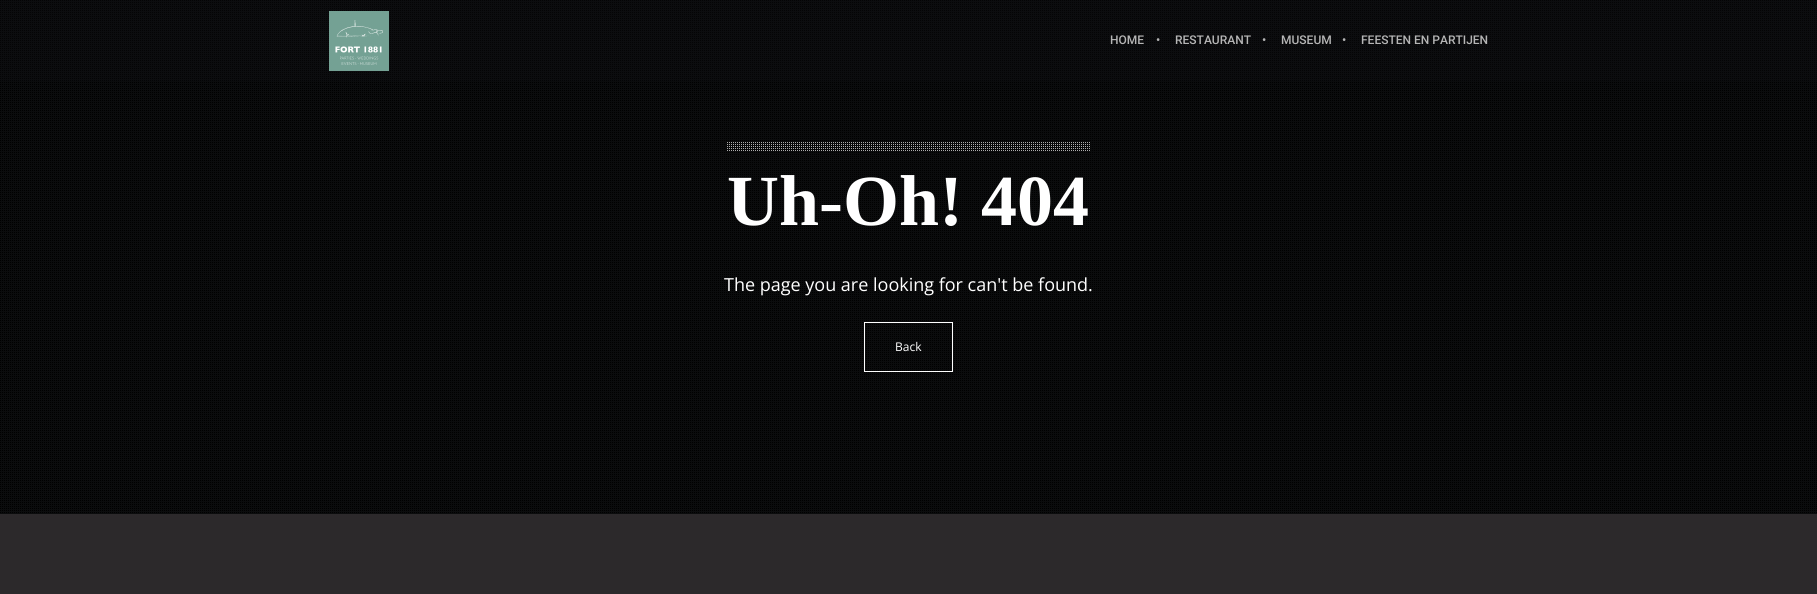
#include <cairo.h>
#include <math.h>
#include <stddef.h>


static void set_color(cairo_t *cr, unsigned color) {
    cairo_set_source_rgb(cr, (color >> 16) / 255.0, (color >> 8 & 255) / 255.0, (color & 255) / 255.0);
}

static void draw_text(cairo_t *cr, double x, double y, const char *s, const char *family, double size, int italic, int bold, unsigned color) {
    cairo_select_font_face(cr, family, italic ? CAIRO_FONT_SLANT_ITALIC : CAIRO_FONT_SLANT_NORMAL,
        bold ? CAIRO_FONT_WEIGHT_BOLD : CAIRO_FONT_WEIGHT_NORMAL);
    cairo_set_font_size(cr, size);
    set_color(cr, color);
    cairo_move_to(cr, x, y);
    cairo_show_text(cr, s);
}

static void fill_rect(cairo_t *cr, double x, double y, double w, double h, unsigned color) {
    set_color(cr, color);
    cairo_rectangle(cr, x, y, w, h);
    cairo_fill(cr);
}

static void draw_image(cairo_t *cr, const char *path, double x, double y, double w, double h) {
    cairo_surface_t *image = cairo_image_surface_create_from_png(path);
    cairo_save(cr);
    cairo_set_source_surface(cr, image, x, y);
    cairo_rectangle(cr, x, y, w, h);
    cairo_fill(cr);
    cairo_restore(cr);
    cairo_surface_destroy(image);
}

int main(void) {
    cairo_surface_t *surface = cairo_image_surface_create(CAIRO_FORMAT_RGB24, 1817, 594);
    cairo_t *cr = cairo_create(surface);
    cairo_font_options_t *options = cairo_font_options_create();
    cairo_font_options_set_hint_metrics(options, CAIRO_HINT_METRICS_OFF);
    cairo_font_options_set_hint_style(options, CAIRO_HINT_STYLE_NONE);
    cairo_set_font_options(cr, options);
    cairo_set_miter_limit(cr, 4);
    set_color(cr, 0x141618);
    cairo_paint(cr);
    draw_image(cr, "assets/img2.png", 0, 0, 1817, 514);
    cairo_set_source_rgba(cr, 0.075, 0.078, 0.086, 0.25);
    cairo_rectangle(cr, 0, 0, 1817, 81);
    cairo_fill(cr);
    draw_image(cr, "assets/img1.png", 329, 11, 60, 60);
    draw_text(cr, 1110, 44, "HOME", "Roboto Medium", 12, 0, 0, 0xB6B6B6);
    draw_text(cr, 1156, 44, "•", "Roboto Medium", 12, 0, 0, 0xB6B6B6);
    draw_text(cr, 1175, 44, "RESTAURANT", "Roboto Medium", 12, 0, 0, 0xB6B6B6);
    draw_text(cr, 1262, 44, "•", "Roboto Medium", 12, 0, 0, 0xB6B6B6);
    draw_text(cr, 1281, 44, "MUSEUM", "Roboto Medium", 12, 0, 0, 0xB6B6B6);
    draw_text(cr, 1342, 44, "•", "Roboto Medium", 12, 0, 0, 0xB6B6B6);
    draw_text(cr, 1361, 44, "FEESTEN EN PARTIJEN", "Roboto Medium", 12, 0, 0, 0xB6B6B6);
    draw_image(cr, "assets/img3.png", 727, 142, 363, 9);
    draw_text(cr, 727, 225, "Uh-Oh! 404", "Liberation Serif", 72, 0, 1, 0xFFFFFF);
    draw_text(cr, 724, 291, "The page you are looking for can't be found.", "Open Sans", 18, 0, 0, 0xFFFFFF);
    cairo_rectangle(cr, 864.5, 322.5, 88, 49);
    cairo_set_line_width(cr, 1);
    cairo_stroke(cr);
    draw_text(cr, 895, 351, "Back", "Open Sans", 12, 0, 0, 0xFFFFFF);
    fill_rect(cr, 0, 514, 1817, 80, 0x2C292B);
    cairo_surface_write_to_png(surface, "output.png");
    cairo_font_options_destroy(options);
    cairo_destroy(cr);
    cairo_surface_destroy(surface);
    return 0;
}
